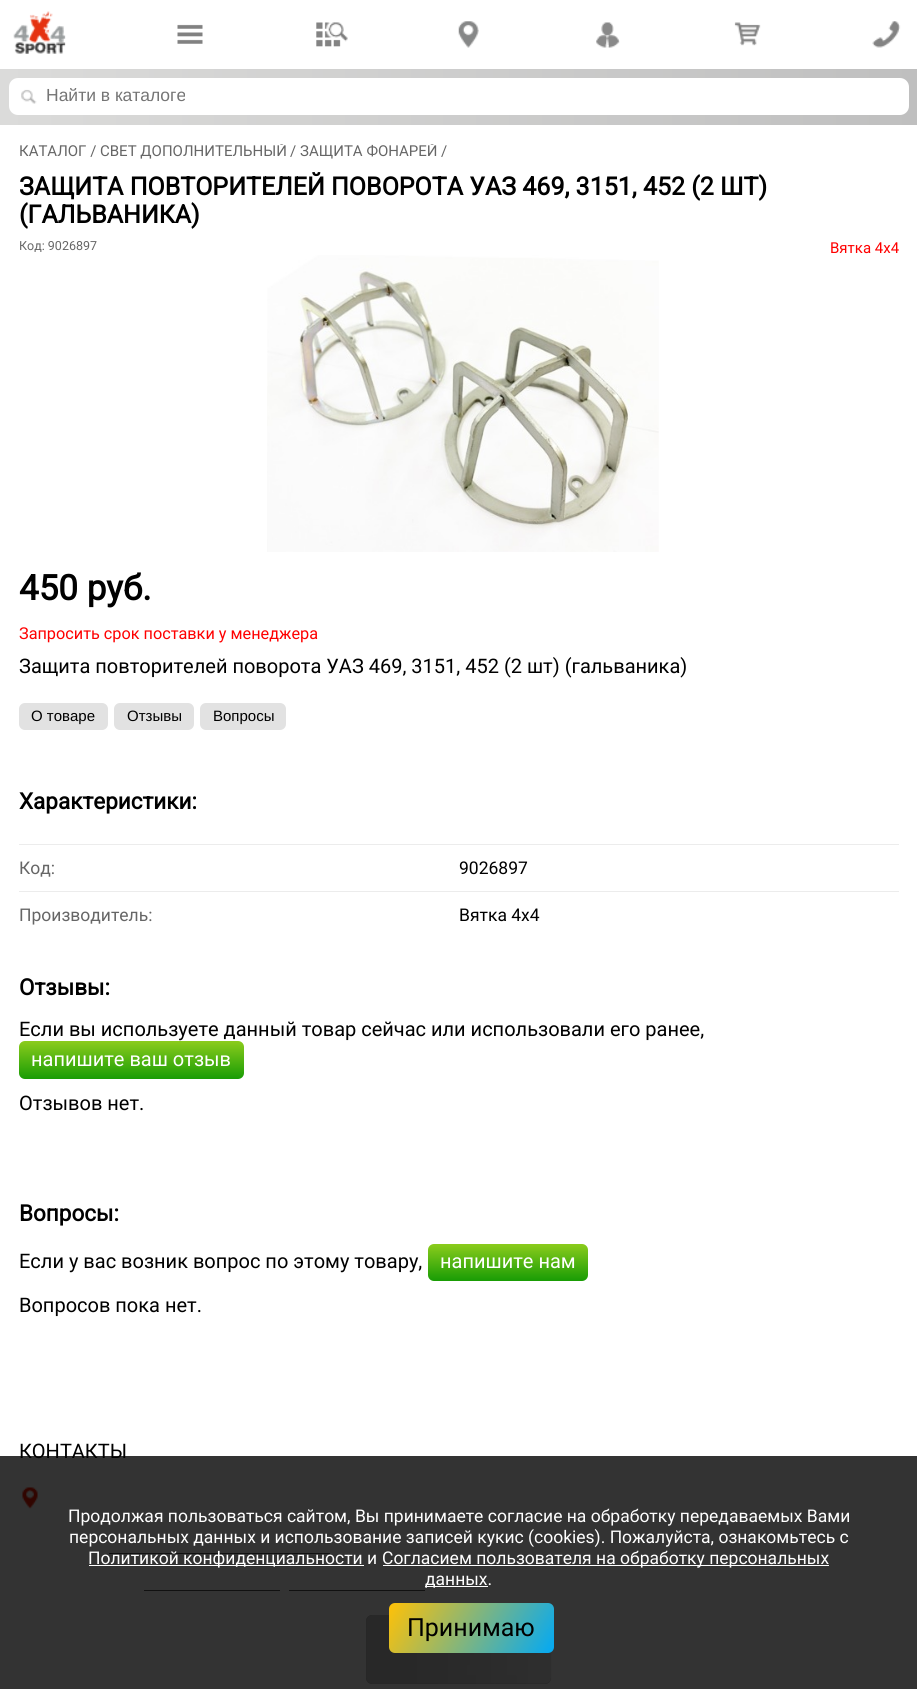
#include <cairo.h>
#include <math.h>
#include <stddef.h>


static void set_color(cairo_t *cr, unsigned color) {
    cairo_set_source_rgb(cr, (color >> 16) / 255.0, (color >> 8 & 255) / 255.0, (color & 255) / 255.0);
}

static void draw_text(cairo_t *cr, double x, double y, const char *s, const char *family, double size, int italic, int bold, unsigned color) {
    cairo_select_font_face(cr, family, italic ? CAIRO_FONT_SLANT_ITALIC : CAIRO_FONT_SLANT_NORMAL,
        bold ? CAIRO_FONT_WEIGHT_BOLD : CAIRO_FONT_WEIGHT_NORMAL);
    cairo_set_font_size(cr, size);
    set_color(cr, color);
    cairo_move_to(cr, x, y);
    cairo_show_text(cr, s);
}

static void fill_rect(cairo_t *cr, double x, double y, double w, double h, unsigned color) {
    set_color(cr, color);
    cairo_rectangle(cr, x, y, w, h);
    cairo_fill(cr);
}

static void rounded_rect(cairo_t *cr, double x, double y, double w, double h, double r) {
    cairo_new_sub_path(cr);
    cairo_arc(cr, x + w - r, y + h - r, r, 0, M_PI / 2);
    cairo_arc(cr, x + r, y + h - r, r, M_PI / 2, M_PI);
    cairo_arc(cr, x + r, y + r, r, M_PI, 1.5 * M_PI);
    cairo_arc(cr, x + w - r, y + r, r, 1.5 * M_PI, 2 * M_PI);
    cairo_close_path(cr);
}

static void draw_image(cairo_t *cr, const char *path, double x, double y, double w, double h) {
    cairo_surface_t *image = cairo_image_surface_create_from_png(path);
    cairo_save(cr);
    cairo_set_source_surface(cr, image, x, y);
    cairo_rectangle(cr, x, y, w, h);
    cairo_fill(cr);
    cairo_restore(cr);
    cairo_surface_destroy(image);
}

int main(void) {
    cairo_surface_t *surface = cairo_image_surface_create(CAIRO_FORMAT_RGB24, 917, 1689);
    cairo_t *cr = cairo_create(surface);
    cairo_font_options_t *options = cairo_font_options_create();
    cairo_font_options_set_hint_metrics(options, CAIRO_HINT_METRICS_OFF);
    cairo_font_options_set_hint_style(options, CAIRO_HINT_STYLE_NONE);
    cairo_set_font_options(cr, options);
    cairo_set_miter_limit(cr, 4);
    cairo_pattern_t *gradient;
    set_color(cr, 0xFFFFFF);
    cairo_paint(cr);
    draw_image(cr, "assets/img1.png", 13, 11, 53, 43);
    draw_image(cr, "assets/img2.png", 177, 24, 26, 20);
    draw_image(cr, "assets/img3.png", 316, 22, 32, 25);
    draw_image(cr, "assets/img4.png", 458, 21, 21, 27);
    draw_image(cr, "assets/img5.png", 596, 22, 24, 26);
    draw_image(cr, "assets/img6.png", 734, 22, 27, 24);
    draw_image(cr, "assets/img7.png", 872, 21, 29, 27);
    gradient = cairo_pattern_create_linear(0, 97, 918, 97);
    cairo_pattern_add_color_stop_rgba(gradient, 0, 0.859, 0.859, 0.855, 1);
    cairo_pattern_add_color_stop_rgba(gradient, 1, 0.749, 0.749, 0.749, 1);
    cairo_set_source(cr, gradient);
    cairo_pattern_destroy(gradient);
    cairo_rectangle(cr, 0, 69, 917, 56);
    cairo_fill(cr);
    set_color(cr, 0xFFFFFF);
    rounded_rect(cr, 9, 78, 900, 37, 9);
    cairo_fill(cr);
    draw_image(cr, "assets/img8.png", 21, 89, 16, 15);
    draw_text(cr, 46, 101, "Найти в каталоге", "Liberation Sans", 17.5, 0, 0, 0x757575);
    draw_text(cr, 19, 156, "КАТАЛОГ /", "Roboto", 15, 0, 0, 0x666666);
    cairo_save(cr);
    cairo_rectangle(cr, 0, 144, 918, 16);
    cairo_clip(cr);
    draw_text(cr, 100, 156, "СВЕТ ДОПОЛНИТЕЛЬНЫЙ", "Roboto", 15, 0, 0, 0x666666);
    cairo_restore(cr);
    draw_text(cr, 290, 156, "/", "Roboto", 15, 0, 0, 0x666666);
    cairo_save(cr);
    cairo_rectangle(cr, 0, 144, 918, 16);
    cairo_clip(cr);
    draw_text(cr, 300, 156, "ЗАЩИТА ФОНАРЕЙ", "Roboto", 15, 0, 0, 0x666666);
    cairo_restore(cr);
    draw_text(cr, 441, 156, "/", "Roboto", 15, 0, 0, 0x666666);
    draw_text(cr, 19, 195, "ЗАЩИТА ПОВТОРИТЕЛЕЙ ПОВОРОТА УАЗ 469, 3151, 452 (2 ШТ)", "Roboto", 25, 0, 1, 0x000000);
    draw_text(cr, 19, 223, "(ГАЛЬВАНИКА)", "Roboto", 25, 0, 1, 0x000000);
    draw_text(cr, 19, 250, "Код: 9026897", "Roboto", 12.5, 0, 0, 0x666666);
    draw_text(cr, 830, 253, "Вятка 4x4", "Roboto", 15, 0, 0, 0xFF0000);
    draw_image(cr, "assets/img9.png", 267, 255, 392, 297);
    draw_text(cr, 19, 600, "450 руб.", "Roboto", 35, 0, 1, 0x000000);
    draw_text(cr, 19, 639, "Запросить срок поставки у менеджера", "Roboto", 16.25, 0, 0, 0xFF0000);
    draw_text(cr, 19, 673, "Защита повторителей поворота УАЗ 469, 3151, 452 (2 шт) (гальваника)", "Roboto", 20, 0, 0, 0x000000);
    set_color(cr, 0xE2E2E2);
    rounded_rect(cr, 19, 703, 89, 27, 6);
    cairo_fill(cr);
    draw_text(cr, 31, 721, "О товаре", "Liberation Sans", 15, 0, 0, 0x000000);
    set_color(cr, 0xE2E2E2);
    rounded_rect(cr, 114, 703, 80, 27, 6);
    cairo_fill(cr);
    draw_text(cr, 127, 721, "Отзывы", "Liberation Sans", 15, 0, 0, 0x000000);
    set_color(cr, 0xE2E2E2);
    rounded_rect(cr, 200, 703, 86, 27, 6);
    cairo_fill(cr);
    draw_text(cr, 213, 721, "Вопросы", "Liberation Sans", 15, 0, 0, 0x000000);
    draw_text(cr, 19, 809, "Характеристики:", "Roboto", 22.5, 0, 1, 0x000000);
    fill_rect(cr, 19, 844, 880, 1, 0xECECEC);
    draw_text(cr, 19, 874, "Код:", "Roboto", 17.5, 0, 0, 0x666666);
    draw_text(cr, 459, 874, "9026897", "Roboto", 17.5, 0, 0, 0x000000);
    fill_rect(cr, 19, 891, 880, 1, 0xECECEC);
    draw_text(cr, 19, 921, "Производитель:", "Roboto", 17.5, 0, 0, 0x666666);
    draw_text(cr, 459, 921, "Вятка 4x4", "Roboto", 17.5, 0, 0, 0x000000);
    draw_text(cr, 19, 995, "Отзывы:", "Roboto", 22.5, 0, 1, 0x000000);
    draw_text(cr, 19, 1036, "Если вы используете данный товар сейчас или использовали его ранее,", "Roboto", 20, 0, 0, 0x000000);
    gradient = cairo_pattern_create_linear(131, 1041, 131, 1079);
    cairo_pattern_add_color_stop_rgba(gradient, 0, 0.549, 0.8, 0.11, 1);
    cairo_pattern_add_color_stop_rgba(gradient, 1, 0.094, 0.612, 0.02, 1);
    cairo_set_source(cr, gradient);
    cairo_pattern_destroy(gradient);
    rounded_rect(cr, 19, 1041, 225, 38, 6);
    cairo_fill(cr);
    draw_text(cr, 31, 1066, "напишите ваш отзыв", "Roboto", 20, 0, 0, 0xFFFFFF);
    draw_text(cr, 19, 1110, "Отзывов нет.", "Roboto", 20, 0, 0, 0x000000);
    set_color(cr, 0xADADAD);
    rounded_rect(cr, 366, 1615, 185, 69, 6);
    cairo_fill(cr);
    draw_image(cr, "assets/img10.png", 366, 1615, 186, 69);
    draw_text(cr, 19, 1221, "Вопросы:", "Roboto", 22.5, 0, 1, 0x000000);
    draw_text(cr, 19, 1268, "Если у вас возник вопрос по этому товару,", "Roboto", 20, 0, 0, 0x000000);
    gradient = cairo_pattern_create_linear(508, 1244, 508, 1281);
    cairo_pattern_add_color_stop_rgba(gradient, 0, 0.549, 0.8, 0.11, 1);
    cairo_pattern_add_color_stop_rgba(gradient, 1, 0.094, 0.612, 0.02, 1);
    cairo_set_source(cr, gradient);
    cairo_pattern_destroy(gradient);
    rounded_rect(cr, 428, 1244, 160, 37, 6);
    cairo_fill(cr);
    draw_text(cr, 440, 1268, "напишите нам", "Roboto", 20, 0, 0, 0xFFFFFF);
    draw_text(cr, 19, 1312, "Вопросов пока нет.", "Roboto", 20, 0, 0, 0x000000);
    draw_text(cr, 19, 1458, "КОНТАКТЫ", "Roboto", 20, 0, 0, 0x000000);
    draw_image(cr, "assets/img11.png", 22, 1487, 16, 22);
    fill_rect(cr, 109, 1553, 221, 1, 0x555555);
    fill_rect(cr, 144, 1590, 136, 1, 0x555555);
    fill_rect(cr, 289, 1590, 136, 1, 0x555555);
    cairo_set_source_rgba(cr, 0, 0, 0, 0.8);
    cairo_rectangle(cr, 0, 1456, 917, 233);
    cairo_fill(cr);
    draw_text(cr, 68, 1522, "Продолжая пользоваться сайтом, Вы принимаете согласие на обработку передаваемых Вами", "Roboto", 17.5, 0, 0, 0xFFFFFF);
    draw_text(cr, 69, 1543, "персональных данных и использование записей кукис (cookies). Пожалуйста, ознакомьтесь с", "Roboto", 17.5, 0, 0, 0xFFFFFF);
    fill_rect(cr, 89, 1565, 275, 1, 0xFFFFFF);
    draw_text(cr, 88, 1564, "Политикой конфиденциальности и", "Roboto", 17.5, 0, 0, 0xFFFFFF);
    fill_rect(cr, 383, 1565, 446, 1, 0xFFFFFF);
    draw_text(cr, 382, 1564, "Согласием пользователя на обработку персональных", "Roboto", 17.5, 0, 0, 0xFFFFFF);
    fill_rect(cr, 425, 1586, 63, 1, 0xFFFFFF);
    draw_text(cr, 425, 1585, "данных.", "Roboto", 17.5, 0, 0, 0xFFFFFF);
    gradient = cairo_pattern_create_linear(399, 1586, 544, 1669);
    cairo_pattern_add_color_stop_rgba(gradient, 0, 1, 0.757, 0.027, 1);
    cairo_pattern_add_color_stop_rgba(gradient, 1, 0.012, 0.663, 0.957, 1);
    cairo_set_source(cr, gradient);
    cairo_pattern_destroy(gradient);
    rounded_rect(cr, 389, 1603, 165, 50, 6);
    cairo_fill(cr);
    draw_text(cr, 407, 1636, "Принимаю", "Roboto", 25, 0, 0, 0x000000);
    cairo_surface_write_to_png(surface, "output.png");
    cairo_font_options_destroy(options);
    cairo_destroy(cr);
    cairo_surface_destroy(surface);
    return 0;
}
